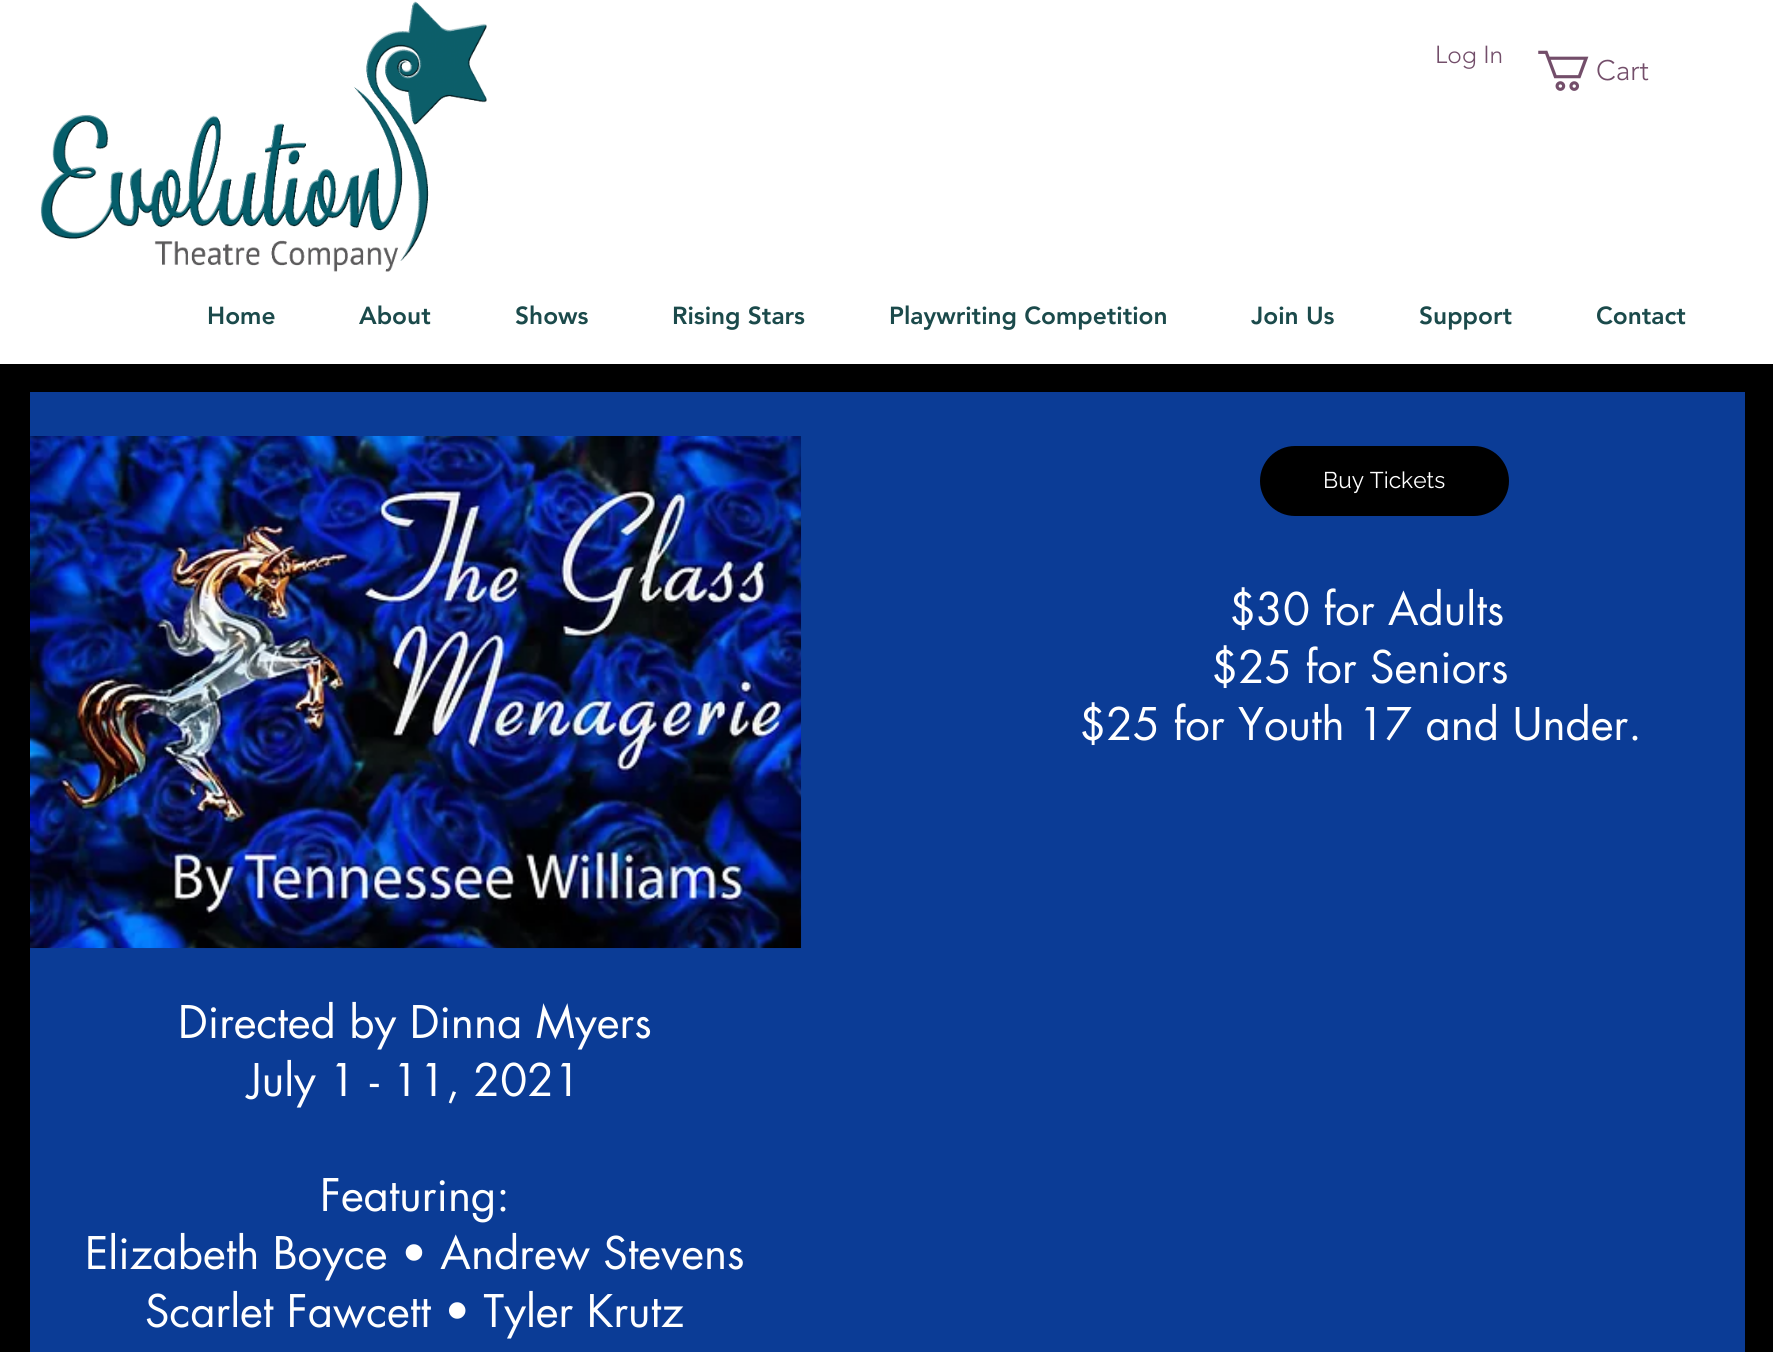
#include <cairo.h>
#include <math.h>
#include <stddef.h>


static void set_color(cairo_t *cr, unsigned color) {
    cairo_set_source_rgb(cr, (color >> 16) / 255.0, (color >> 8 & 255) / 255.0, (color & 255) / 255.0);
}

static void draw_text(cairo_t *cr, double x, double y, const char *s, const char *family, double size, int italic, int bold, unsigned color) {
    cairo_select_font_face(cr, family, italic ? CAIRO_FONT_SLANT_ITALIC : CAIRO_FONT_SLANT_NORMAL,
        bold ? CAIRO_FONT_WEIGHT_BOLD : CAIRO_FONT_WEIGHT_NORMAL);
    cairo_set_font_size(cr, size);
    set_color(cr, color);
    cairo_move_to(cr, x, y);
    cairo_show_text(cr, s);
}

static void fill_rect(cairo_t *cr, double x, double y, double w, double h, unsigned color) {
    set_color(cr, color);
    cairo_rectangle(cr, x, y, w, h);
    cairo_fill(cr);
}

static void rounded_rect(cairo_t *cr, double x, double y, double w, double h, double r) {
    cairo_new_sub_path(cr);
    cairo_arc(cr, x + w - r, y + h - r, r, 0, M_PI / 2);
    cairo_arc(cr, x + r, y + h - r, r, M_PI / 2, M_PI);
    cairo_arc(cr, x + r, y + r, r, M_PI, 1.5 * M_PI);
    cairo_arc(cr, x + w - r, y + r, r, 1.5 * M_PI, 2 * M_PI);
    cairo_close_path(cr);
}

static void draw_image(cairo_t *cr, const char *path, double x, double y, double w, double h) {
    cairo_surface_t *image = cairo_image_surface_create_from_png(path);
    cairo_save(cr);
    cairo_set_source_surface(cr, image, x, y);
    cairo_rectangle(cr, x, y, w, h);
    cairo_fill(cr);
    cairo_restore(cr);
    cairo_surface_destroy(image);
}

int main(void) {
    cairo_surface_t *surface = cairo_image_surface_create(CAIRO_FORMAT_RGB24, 1773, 1352);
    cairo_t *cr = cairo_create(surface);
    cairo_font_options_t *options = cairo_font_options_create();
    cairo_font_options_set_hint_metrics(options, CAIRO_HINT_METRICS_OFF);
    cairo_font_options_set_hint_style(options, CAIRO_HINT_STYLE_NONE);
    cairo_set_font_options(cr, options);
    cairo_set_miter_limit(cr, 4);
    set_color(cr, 0x000000);
    cairo_paint(cr);
    fill_rect(cr, 0, 0, 1773, 364, 0xFFFFFF);
    draw_image(cr, "assets/img1.png", 40, 1, 447, 271);
    draw_text(cr, 1435, 63, "Log In", "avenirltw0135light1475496 Light", 24.5, 0, 0, 0x734E6A);
    draw_image(cr, "assets/img2.png", 1538, 50, 51, 41);
    draw_text(cr, 1596, 80, "Cart", "avenirltw0135light1475496 Light", 28, 0, 0, 0x734E6A);
    draw_text(cr, 207, 324, "Home", "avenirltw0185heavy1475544 Black", 24.5, 0, 0, 0x1B4A4B);
    draw_text(cr, 359, 324, "About", "avenirltw0185heavy1475544 Black", 24.5, 0, 0, 0x1B4A4B);
    draw_text(cr, 515, 324, "Shows", "avenirltw0185heavy1475544 Black", 24.5, 0, 0, 0x1B4A4B);
    draw_text(cr, 672, 324, "Rising Stars", "avenirltw0185heavy1475544 Black", 24.5, 0, 0, 0x1B4A4B);
    draw_text(cr, 889, 324, "Playwriting Competition", "avenirltw0185heavy1475544 Black", 24.5, 0, 0, 0x1B4A4B);
    draw_text(cr, 1251, 324, "Join Us", "avenirltw0185heavy1475544 Black", 24.5, 0, 0, 0x1B4A4B);
    draw_text(cr, 1419, 324, "Support", "avenirltw0185heavy1475544 Black", 24.5, 0, 0, 0x1B4A4B);
    draw_text(cr, 1596, 324, "Contact", "avenirltw0185heavy1475544 Black", 24.5, 0, 0, 0x1B4A4B);
    fill_rect(cr, 30, 392, 1715, 960, 0x0B3C96);
    draw_image(cr, "assets/img3.png", 30, 436, 772, 513);
    set_color(cr, 0x000000);
    rounded_rect(cr, 1260, 446, 249, 70, 35);
    cairo_fill(cr);
    draw_text(cr, 1323, 488, "Buy Tickets", "Raleway", 22.75, 0, 0, 0xFFFFFF);
    draw_text(cr, 1229, 625, "$30 for Adults", "futura", 43.75, 0, 0, 0xFFFFFF);
    draw_text(cr, 1211, 683, "$25 for Seniors", "futura", 43.75, 0, 0, 0xFFFFFF);
    draw_text(cr, 1079, 740, "$25 for Youth 17 and Under.", "futura", 43.75, 0, 0, 0xFFFFFF);
    draw_text(cr, 178, 1038, "Directed by Dinna Myers", "futura", 43.75, 0, 0, 0xFFFFFF);
    draw_text(cr, 248, 1096, "July 1 - 11, 2021", "futura", 43.75, 0, 0, 0xFFFFFF);
    draw_text(cr, 320, 1211, "Featuring:", "futura", 43.75, 0, 0, 0xFFFFFF);
    draw_text(cr, 85, 1269, "Elizabeth Boyce • Andrew Stevens", "futura", 43.75, 0, 0, 0xFFFFFF);
    draw_text(cr, 145, 1327, "Scarlet Fawcett • Tyler Krutz", "futura", 43.75, 0, 0, 0xFFFFFF);
    cairo_surface_write_to_png(surface, "output.png");
    cairo_font_options_destroy(options);
    cairo_destroy(cr);
    cairo_surface_destroy(surface);
    return 0;
}
